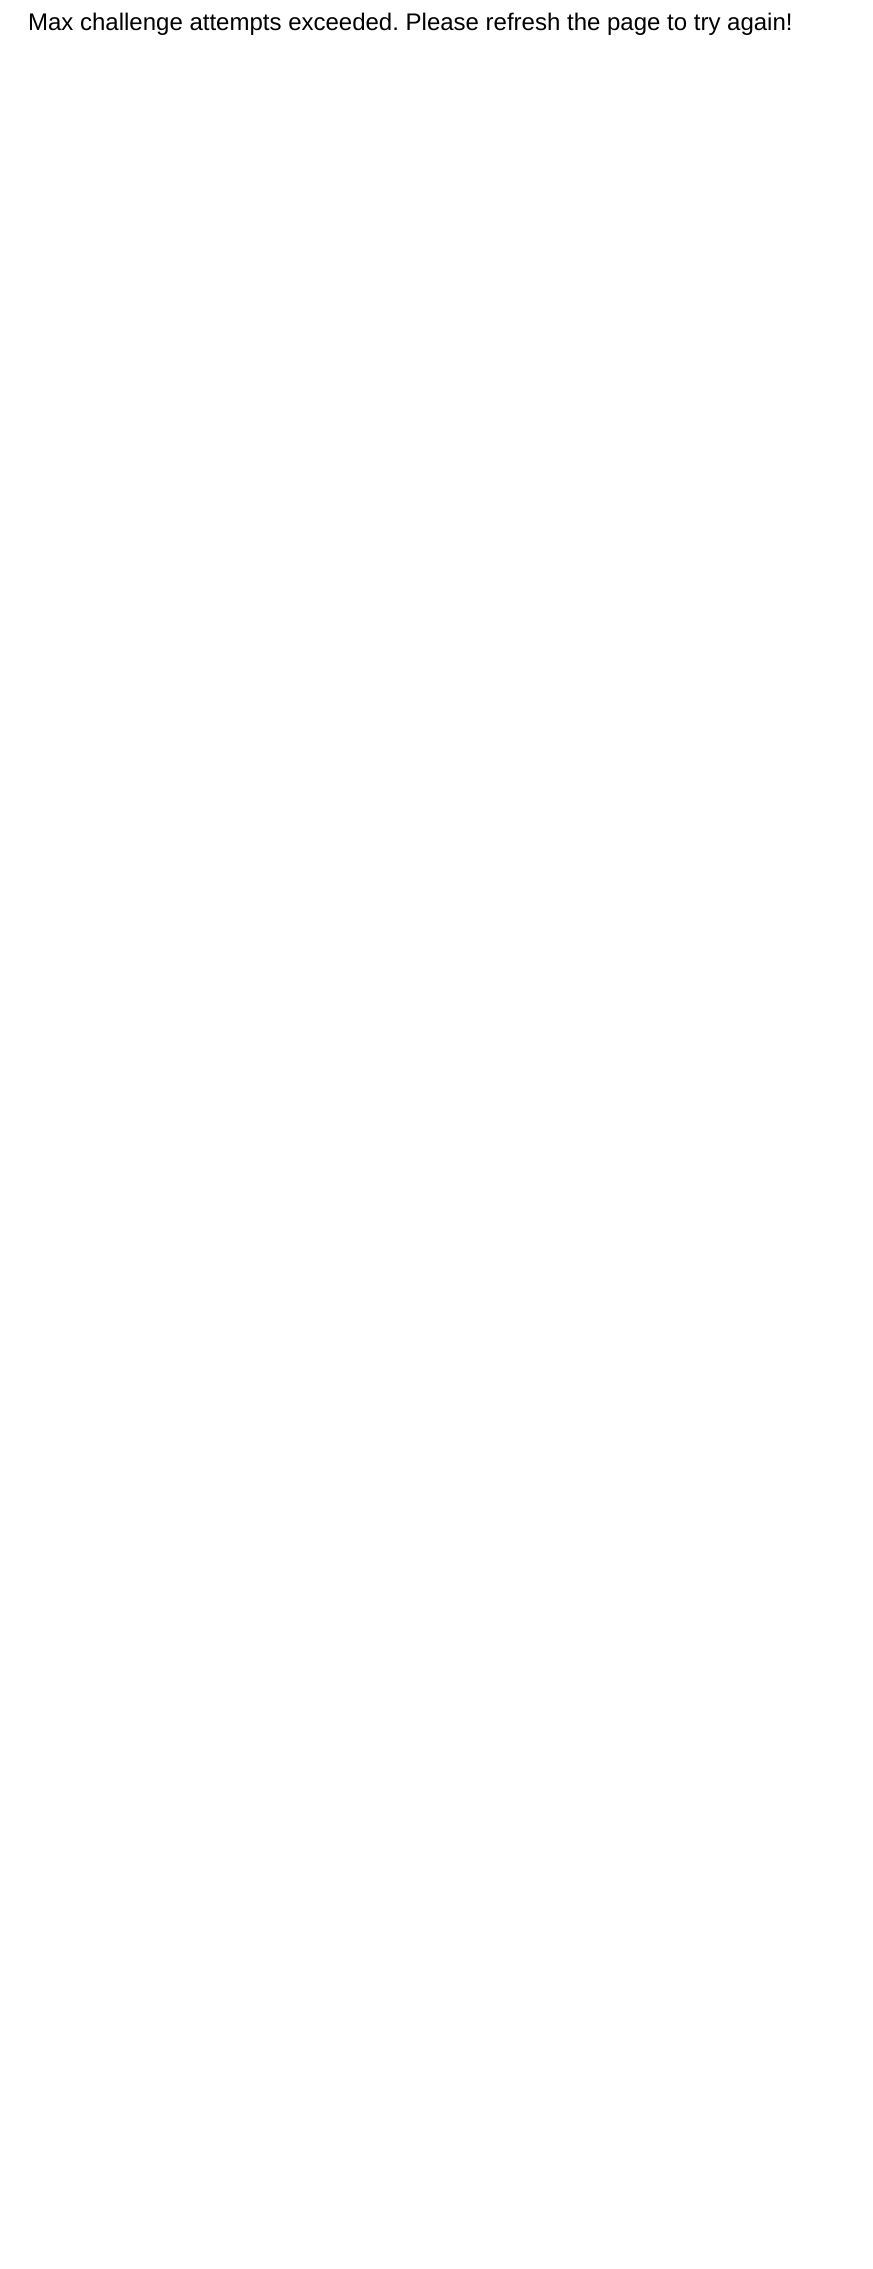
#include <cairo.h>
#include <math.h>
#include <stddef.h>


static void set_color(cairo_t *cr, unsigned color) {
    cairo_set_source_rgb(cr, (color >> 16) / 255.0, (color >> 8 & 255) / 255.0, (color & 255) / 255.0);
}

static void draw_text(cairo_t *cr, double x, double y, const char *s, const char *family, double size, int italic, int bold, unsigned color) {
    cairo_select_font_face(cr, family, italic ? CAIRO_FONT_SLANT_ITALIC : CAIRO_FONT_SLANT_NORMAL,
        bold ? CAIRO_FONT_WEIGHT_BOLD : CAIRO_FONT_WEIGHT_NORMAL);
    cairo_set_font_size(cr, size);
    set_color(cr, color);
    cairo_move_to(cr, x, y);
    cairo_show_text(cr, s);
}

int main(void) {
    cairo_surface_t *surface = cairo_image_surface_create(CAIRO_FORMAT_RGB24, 873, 2269);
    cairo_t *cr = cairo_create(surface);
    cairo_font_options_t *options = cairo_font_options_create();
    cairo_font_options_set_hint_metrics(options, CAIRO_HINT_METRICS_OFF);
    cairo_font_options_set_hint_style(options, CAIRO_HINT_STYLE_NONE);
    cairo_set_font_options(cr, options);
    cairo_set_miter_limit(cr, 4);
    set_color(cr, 0xFFFFFF);
    cairo_paint(cr);
    draw_text(cr, 28, 30, "Max challenge attempts exceeded. Please refresh the page to try again!", "Liberation Sans", 24, 0, 0, 0x000000);
    cairo_surface_write_to_png(surface, "output.png");
    cairo_font_options_destroy(options);
    cairo_destroy(cr);
    cairo_surface_destroy(surface);
    return 0;
}
